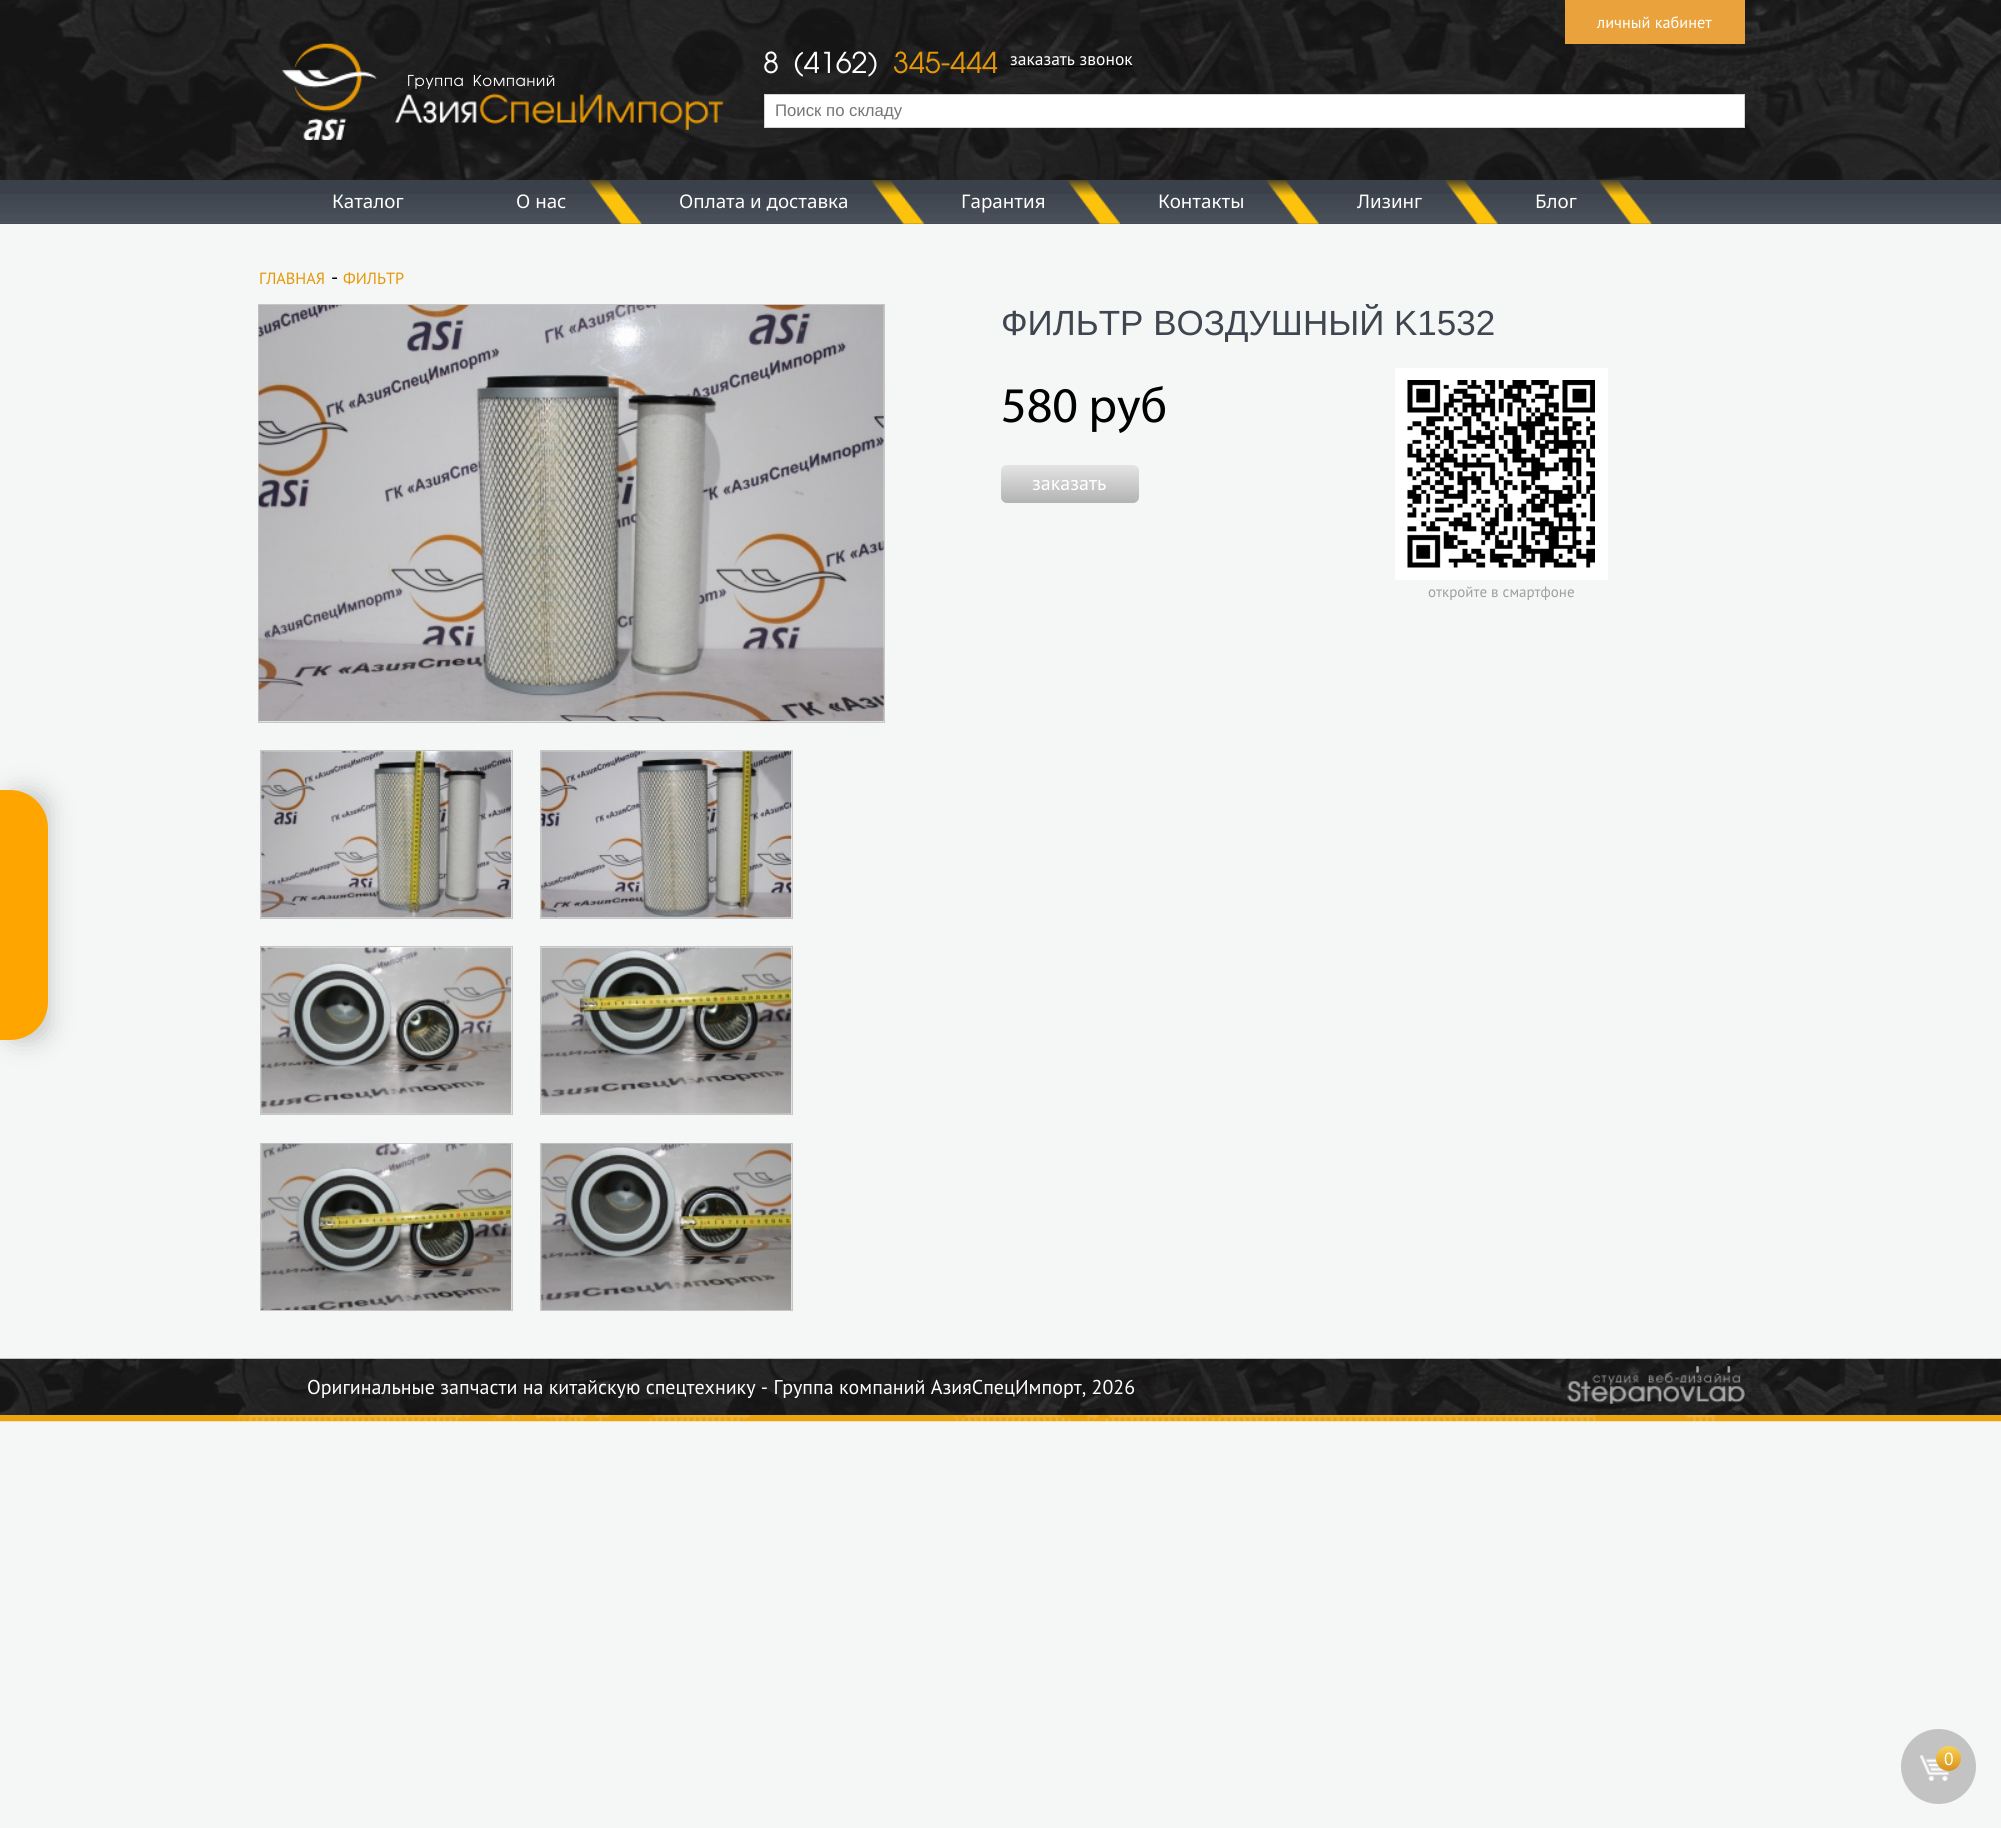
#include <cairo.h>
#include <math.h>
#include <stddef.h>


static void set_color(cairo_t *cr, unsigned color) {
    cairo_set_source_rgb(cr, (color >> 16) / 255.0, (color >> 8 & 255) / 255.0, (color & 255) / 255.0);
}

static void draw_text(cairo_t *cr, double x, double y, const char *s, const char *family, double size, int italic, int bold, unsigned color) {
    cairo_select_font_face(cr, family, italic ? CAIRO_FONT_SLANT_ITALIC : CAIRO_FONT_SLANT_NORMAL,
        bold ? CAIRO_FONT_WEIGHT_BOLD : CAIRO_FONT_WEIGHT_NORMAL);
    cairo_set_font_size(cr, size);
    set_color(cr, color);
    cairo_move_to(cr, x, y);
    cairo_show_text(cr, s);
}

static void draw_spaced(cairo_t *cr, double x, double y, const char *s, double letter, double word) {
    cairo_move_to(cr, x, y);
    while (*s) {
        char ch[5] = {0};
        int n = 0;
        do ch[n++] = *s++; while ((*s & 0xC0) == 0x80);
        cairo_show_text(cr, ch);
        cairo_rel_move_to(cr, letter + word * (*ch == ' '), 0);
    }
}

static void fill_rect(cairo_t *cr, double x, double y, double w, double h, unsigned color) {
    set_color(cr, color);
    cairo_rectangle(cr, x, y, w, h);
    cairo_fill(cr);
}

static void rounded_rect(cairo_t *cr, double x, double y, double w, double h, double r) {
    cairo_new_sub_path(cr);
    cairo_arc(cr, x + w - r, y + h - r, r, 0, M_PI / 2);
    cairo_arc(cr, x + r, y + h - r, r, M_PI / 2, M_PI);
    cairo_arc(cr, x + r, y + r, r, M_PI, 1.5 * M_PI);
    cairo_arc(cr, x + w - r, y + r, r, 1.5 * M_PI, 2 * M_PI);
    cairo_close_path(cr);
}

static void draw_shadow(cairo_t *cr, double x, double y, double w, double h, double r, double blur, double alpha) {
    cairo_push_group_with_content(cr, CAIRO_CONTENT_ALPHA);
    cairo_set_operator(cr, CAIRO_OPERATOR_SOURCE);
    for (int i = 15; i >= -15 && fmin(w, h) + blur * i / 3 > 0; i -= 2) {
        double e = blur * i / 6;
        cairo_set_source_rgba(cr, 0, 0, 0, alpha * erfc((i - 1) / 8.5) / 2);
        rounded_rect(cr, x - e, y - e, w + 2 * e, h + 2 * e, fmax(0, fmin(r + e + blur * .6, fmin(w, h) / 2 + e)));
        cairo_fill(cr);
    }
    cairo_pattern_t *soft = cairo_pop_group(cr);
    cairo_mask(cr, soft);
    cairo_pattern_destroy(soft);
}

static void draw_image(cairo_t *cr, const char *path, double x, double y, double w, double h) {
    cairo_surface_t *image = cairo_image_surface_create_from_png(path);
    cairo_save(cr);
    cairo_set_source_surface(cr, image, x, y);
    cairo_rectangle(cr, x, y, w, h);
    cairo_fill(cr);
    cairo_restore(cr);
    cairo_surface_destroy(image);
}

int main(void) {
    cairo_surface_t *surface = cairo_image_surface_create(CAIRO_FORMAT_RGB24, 2001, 1828);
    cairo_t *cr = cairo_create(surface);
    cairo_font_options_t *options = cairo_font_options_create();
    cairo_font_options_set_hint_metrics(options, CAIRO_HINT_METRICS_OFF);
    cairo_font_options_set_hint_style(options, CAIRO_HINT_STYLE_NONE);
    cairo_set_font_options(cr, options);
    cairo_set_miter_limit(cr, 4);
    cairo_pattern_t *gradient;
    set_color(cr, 0xF5F6F6);
    cairo_paint(cr);
    draw_image(cr, "assets/img1.png", 0, 0, 2001, 180);
    draw_image(cr, "assets/img2.png", 282, 43, 95, 97);
    cairo_select_font_face(cr, "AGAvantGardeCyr", CAIRO_FONT_SLANT_NORMAL, CAIRO_FONT_WEIGHT_NORMAL);
    cairo_set_font_size(cr, 15);
    set_color(cr, 0xFFFFFF);
    draw_spaced(cr, 407, 86, "Группа Компаний", 0.75, 0);
    draw_image(cr, "assets/img3.png", 395, 93, 329, 37);
    fill_rect(cr, 1565, 0, 180, 44, 0xEAA33C);
    draw_text(cr, 1597, 28, "личный кабинет", "PT Sans", 16.25, 0, 0, 0xFFFFFF);
    draw_text(cr, 763, 73, "8 (4162)", "AGAvantGardeCyr", 28.75, 0, 0, 0xFFFFFF);
    draw_text(cr, 893, 73, "345-444", "AGAvantGardeCyr", 28.75, 0, 0, 0xE59806);
    draw_text(cr, 1010, 65, "заказать звонок", "PT Sans", 17.5, 0, 0, 0xFFFFFF);
    fill_rect(cr, 1010, 66, 123, 1, 0x000000);
    set_color(cr, 0xFFFFFF);
    cairo_rectangle(cr, 764.5, 94.5, 980, 33);
    cairo_fill_preserve(cr);
    set_color(cr, 0xD3D3D3);
    cairo_set_line_width(cr, 1);
    cairo_stroke(cr);
    draw_text(cr, 775, 116, "Поиск по складу", "Liberation Sans", 16.75, 0, 0, 0x757575);
    fill_rect(cr, 0, 180, 2001, 44, 0x3A414A);
    draw_image(cr, "assets/img4.png", 0, 194, 2001, 30);
    draw_text(cr, 332, 208, "Каталог", "Noto Sans", 18.75, 0, 0, 0xFFFFFF);
    draw_image(cr, "assets/img5.png", 588, 180, 54, 44);
    draw_text(cr, 516, 208, "О нас", "Noto Sans", 18.75, 0, 0, 0xFFFFFF);
    draw_image(cr, "assets/img6.png", 871, 180, 53, 44);
    draw_text(cr, 679, 208, "Оплата и доставка", "Noto Sans", 18.75, 0, 0, 0xFFFFFF);
    draw_image(cr, "assets/img7.png", 1067, 180, 53, 44);
    draw_text(cr, 961, 208, "Гарантия", "Noto Sans", 18.75, 0, 0, 0xFFFFFF);
    draw_image(cr, "assets/img6.png", 1266, 180, 53, 44);
    draw_text(cr, 1158, 208, "Контакты", "Noto Sans", 18.75, 0, 0, 0xFFFFFF);
    draw_image(cr, "assets/img8.png", 1445, 180, 53, 44);
    draw_text(cr, 1357, 208, "Лизинг", "Noto Sans", 18.75, 0, 0, 0xFFFFFF);
    draw_image(cr, "assets/img5.png", 1598, 180, 54, 44);
    draw_text(cr, 1535, 208, "Блог", "Noto Sans", 18.75, 0, 0, 0xFFFFFF);
    set_color(cr, 0x404040);
    draw_shadow(cr, 1, 791, 48, 250, 38, 12.5, 0.26);
    set_color(cr, 0xFFA500);
    cairo_new_path(cr);
    cairo_move_to(cr, 0, 790);
    cairo_line_to(cr, 10, 790);
    cairo_curve_to(cr, 31, 790, 48, 807, 48, 828);
    cairo_line_to(cr, 48, 1002);
    cairo_curve_to(cr, 48, 1023, 31, 1040, 10, 1040);
    cairo_line_to(cr, 0, 1040);
    cairo_close_path(cr);
    cairo_fill(cr);
    draw_text(cr, 259, 284, "ГЛАВНАЯ", "PT Sans", 16.25, 0, 0, 0xE59806);
    draw_text(cr, 331, 284, "-", "PT Sans", 20, 0, 0, 0x000000);
    draw_text(cr, 343, 284, "ФИЛЬТР", "PT Sans", 16.25, 0, 0, 0xE59806);
    cairo_rectangle(cr, 258.5, 304.5, 626, 418);
    set_color(cr, 0xC6C6C6);
    cairo_stroke(cr);
    draw_image(cr, "assets/img9.png", 258, 305, 626, 417);
    cairo_rectangle(cr, 260.5, 750.5, 252, 168);
    cairo_stroke(cr);
    draw_image(cr, "assets/img10.png", 261, 751, 251, 167);
    cairo_rectangle(cr, 540.5, 750.5, 252, 168);
    cairo_stroke(cr);
    draw_image(cr, "assets/img11.png", 541, 751, 251, 167);
    cairo_rectangle(cr, 260.5, 946.5, 252, 168);
    cairo_stroke(cr);
    draw_image(cr, "assets/img12.png", 261, 947, 251, 167);
    cairo_rectangle(cr, 540.5, 946.5, 252, 168);
    cairo_stroke(cr);
    draw_image(cr, "assets/img13.png", 541, 947, 251, 167);
    cairo_rectangle(cr, 260.5, 1143.5, 252, 167);
    cairo_stroke(cr);
    draw_image(cr, "assets/img14.png", 261, 1143, 251, 167);
    cairo_rectangle(cr, 540.5, 1143.5, 252, 167);
    cairo_stroke(cr);
    draw_image(cr, "assets/img15.png", 541, 1143, 251, 167);
    cairo_save(cr);
    cairo_rectangle(cr, 258, 304, 1487, 1035);
    cairo_clip(cr);
    draw_text(cr, 1001, 335, "ФИЛЬТР ВОЗДУШНЫЙ K1532", "Liberation Sans", 35, 0, 0, 0x3F464F);
    cairo_restore(cr);
    draw_text(cr, 1001, 422, "580 руб", "Myriad", 50, 0, 0, 0x000000);
    gradient = cairo_pattern_create_linear(1085, 465, 1085, 503);
    cairo_pattern_add_color_stop_rgba(gradient, 0, 0.894, 0.894, 0.894, 1);
    cairo_pattern_add_color_stop_rgba(gradient, 1, 0.702, 0.702, 0.702, 1);
    cairo_set_source(cr, gradient);
    cairo_pattern_destroy(gradient);
    rounded_rect(cr, 1001, 465, 138, 38, 6);
    cairo_fill(cr);
    draw_text(cr, 1032, 490, "заказать", "PT Sans", 20, 0, 0, 0xFFFFFF);
    fill_rect(cr, 1395, 368, 213, 212, 0xFFFFFF);
    draw_image(cr, "assets/img16.png", 1407, 380, 188, 188);
    draw_text(cr, 1428, 597, "откройте в смартфоне", "PT Sans", 15, 0, 0, 0x9E9E9E);
    draw_image(cr, "assets/img17.png", 0, 1358, 2001, 57);
    draw_text(cr, 307, 1394, "Оригинальные запчасти на китайскую спецтехнику - Группа компаний АзияСпецИмпорт, 2026", "PT Sans", 20, 0, 0, 0xFFFFFF);
    draw_image(cr, "assets/img18.png", 1567, 1366, 178, 38);
    draw_image(cr, "assets/img19.png", 0, 1415, 2001, 7);
    set_color(cr, 0xC3C3C3);
    cairo_arc(cr, 1938.5, 1766.5, 37.5, 0, 2 * M_PI);
    cairo_fill(cr);
    draw_image(cr, "assets/img20.png", 1920, 1755, 29, 26);
    gradient = cairo_pattern_create_linear(1949, 1746, 1949, 1771);
    cairo_pattern_add_color_stop_rgba(gradient, 0, 0.973, 0.827, 0.325, 1);
    cairo_pattern_add_color_stop_rgba(gradient, 1, 0.847, 0.569, 0.11, 1);
    cairo_set_source(cr, gradient);
    cairo_pattern_destroy(gradient);
    cairo_arc(cr, 1948.5, 1758.5, 12.5, 0, 2 * M_PI);
    cairo_fill(cr);
    draw_text(cr, 1944, 1765, "0", "PT Sans", 17.5, 0, 0, 0xFFFFFF);
    cairo_surface_write_to_png(surface, "output.png");
    cairo_font_options_destroy(options);
    cairo_destroy(cr);
    cairo_surface_destroy(surface);
    return 0;
}
